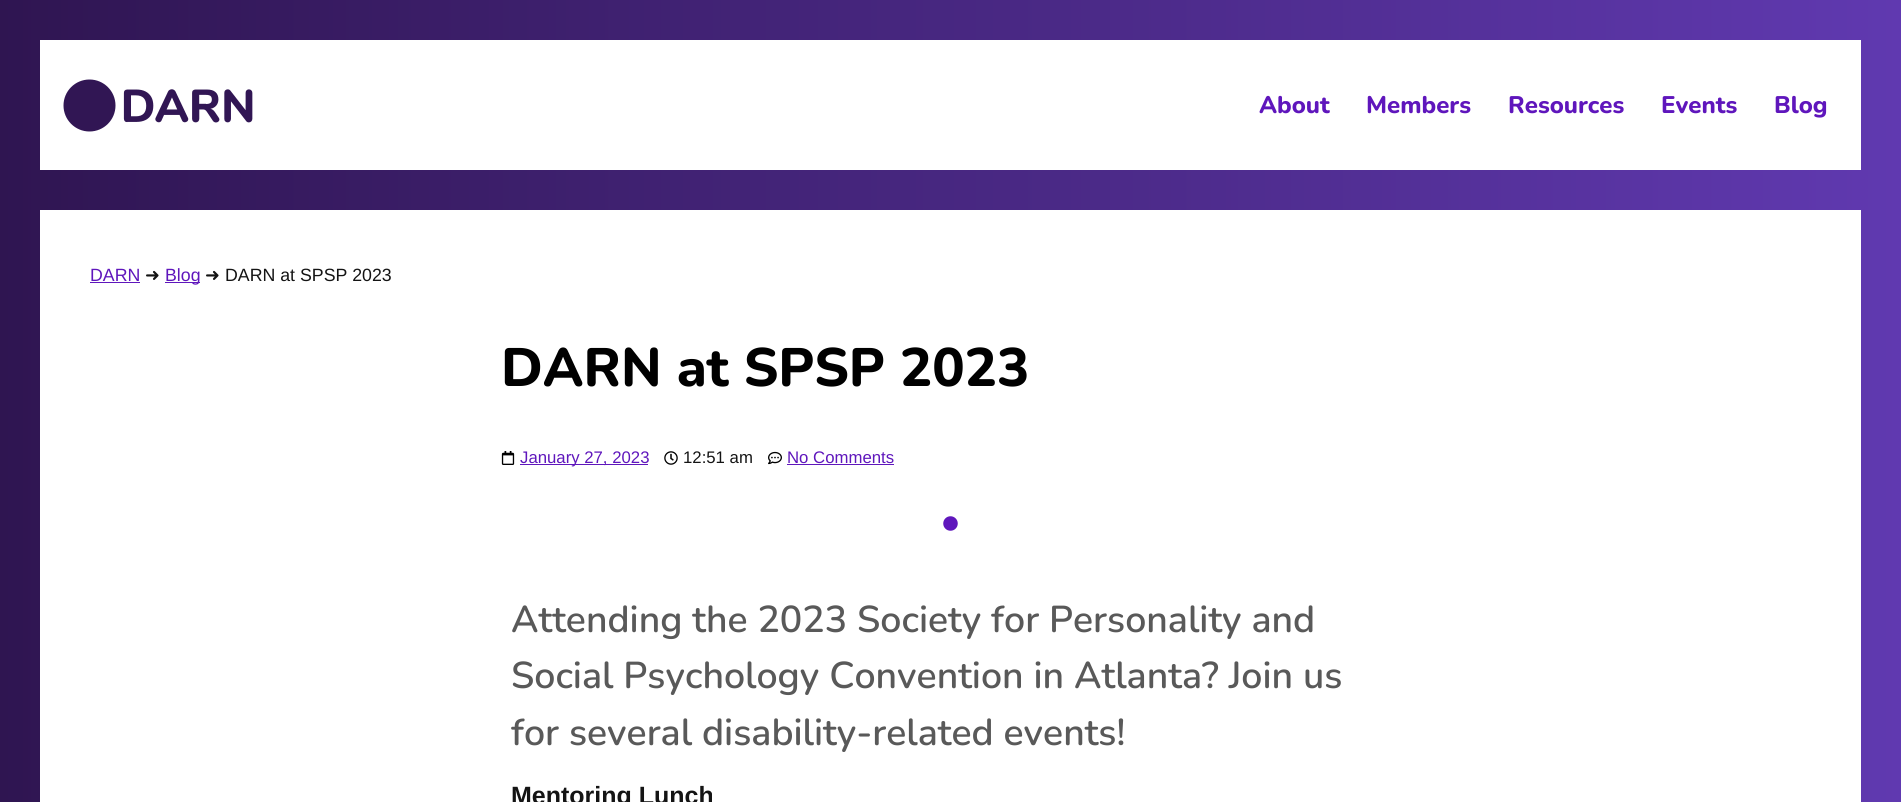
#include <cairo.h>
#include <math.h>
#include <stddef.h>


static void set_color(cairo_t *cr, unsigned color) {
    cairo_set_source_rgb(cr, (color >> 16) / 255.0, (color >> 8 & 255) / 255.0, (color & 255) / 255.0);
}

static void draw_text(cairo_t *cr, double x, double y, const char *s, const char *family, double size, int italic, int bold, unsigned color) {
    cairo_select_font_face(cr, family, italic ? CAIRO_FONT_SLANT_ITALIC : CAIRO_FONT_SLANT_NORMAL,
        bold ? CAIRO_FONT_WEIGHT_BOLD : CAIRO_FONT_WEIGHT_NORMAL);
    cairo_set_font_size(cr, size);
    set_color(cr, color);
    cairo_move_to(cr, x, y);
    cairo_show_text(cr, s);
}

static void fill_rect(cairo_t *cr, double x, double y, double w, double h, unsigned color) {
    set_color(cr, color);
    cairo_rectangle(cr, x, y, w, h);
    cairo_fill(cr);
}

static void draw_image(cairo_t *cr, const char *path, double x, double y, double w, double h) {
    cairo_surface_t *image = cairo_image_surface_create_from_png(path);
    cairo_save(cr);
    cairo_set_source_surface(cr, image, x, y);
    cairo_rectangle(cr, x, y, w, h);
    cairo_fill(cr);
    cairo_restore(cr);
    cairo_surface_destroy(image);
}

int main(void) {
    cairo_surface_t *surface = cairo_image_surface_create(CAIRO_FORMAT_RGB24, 1901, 802);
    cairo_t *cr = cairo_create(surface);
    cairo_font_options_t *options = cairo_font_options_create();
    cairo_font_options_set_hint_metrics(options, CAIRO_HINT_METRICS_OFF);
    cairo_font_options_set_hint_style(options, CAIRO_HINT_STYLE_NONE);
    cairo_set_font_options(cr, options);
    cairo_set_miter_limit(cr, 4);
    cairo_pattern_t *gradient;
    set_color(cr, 0xFFFFFF);
    cairo_paint(cr);
    gradient = cairo_pattern_create_linear(0, 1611, 1901, 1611);
    cairo_pattern_add_color_stop_rgba(gradient, 0, 0.184, 0.082, 0.318, 1);
    cairo_pattern_add_color_stop_rgba(gradient, 1, 0.376, 0.224, 0.69, 1);
    cairo_set_source(cr, gradient);
    cairo_pattern_destroy(gradient);
    cairo_rectangle(cr, 0, 0, 1901, 802);
    cairo_fill(cr);
    fill_rect(cr, 40, 40, 1821, 130, 0xFFFFFF);
    draw_image(cr, "assets/img1.png", 63, 79, 190, 53);
    draw_text(cr, 1259, 113, "About", "Nunito ExtraBold", 24, 0, 0, 0x5F16BC);
    draw_text(cr, 1366, 113, "Members", "Nunito ExtraBold", 24, 0, 0, 0x5F16BC);
    draw_text(cr, 1508, 113, "Resources", "Nunito ExtraBold", 24, 0, 0, 0x5F16BC);
    draw_text(cr, 1661, 113, "Events", "Nunito ExtraBold", 24, 0, 0, 0x5F16BC);
    draw_text(cr, 1774, 113, "Blog", "Nunito ExtraBold", 24, 0, 0, 0x5F16BC);
    fill_rect(cr, 40, 210, 1821, 592, 0xFFFFFF);
    draw_text(cr, 90, 281, "DARN", "Liberation Sans", 17.75, 0, 0, 0x5F16BC);
    fill_rect(cr, 90, 282, 50, 1, 0x5F16BC);
    draw_text(cr, 145, 281, "➜", "DejaVu Sans", 17.75, 0, 0, 0x141414);
    fill_rect(cr, 165, 282, 35, 1, 0x5F16BC);
    draw_text(cr, 165, 281, "Blog", "Liberation Sans", 17.75, 0, 0, 0x5F16BC);
    draw_text(cr, 205, 281, "➜", "DejaVu Sans", 17.75, 0, 0, 0x141414);
    draw_text(cr, 225, 281, "DARN at SPSP 2023", "Liberation Sans", 17.75, 0, 0, 0x141414);
    draw_text(cr, 501, 386, "DARN at SPSP 2023", "Nunito ExtraBold", 54, 0, 0, 0x000000);
    draw_image(cr, "assets/img2.png", 501, 451, 14, 14);
    fill_rect(cr, 520, 464, 128, 1, 0x5F16BC);
    draw_text(cr, 520, 463, "January 27, 2023", "Liberation Sans", 16.75, 0, 0, 0x5F16BC);
    draw_image(cr, "assets/img3.png", 664, 451, 14, 14);
    draw_text(cr, 683, 463, "12:51 am", "Liberation Sans", 16.75, 0, 0, 0x141414);
    draw_image(cr, "assets/img4.png", 768, 451, 14, 14);
    draw_text(cr, 787, 463, "No Comments", "Liberation Sans", 16.75, 0, 0, 0x5F16BC);
    fill_rect(cr, 787, 464, 107, 1, 0x5F16BC);
    draw_image(cr, "assets/img5.png", 943, 516, 15, 15);
    draw_text(cr, 511, 632, "Attending the 2023 Society for Personality and", "Nunito SemiBold", 37.4, 0, 0, 0x595959);
    draw_text(cr, 511, 688, "Social Psychology Convention in Atlanta? Join us", "Nunito SemiBold", 37.4, 0, 0, 0x595959);
    draw_text(cr, 511, 745, "for several disability-related events!", "Nunito SemiBold", 37.4, 0, 0, 0x595959);
    draw_text(cr, 511, 804, "Mentoring Lunch", "Liberation Sans", 25, 0, 1, 0x141414);
    cairo_surface_write_to_png(surface, "output.png");
    cairo_font_options_destroy(options);
    cairo_destroy(cr);
    cairo_surface_destroy(surface);
    return 0;
}
